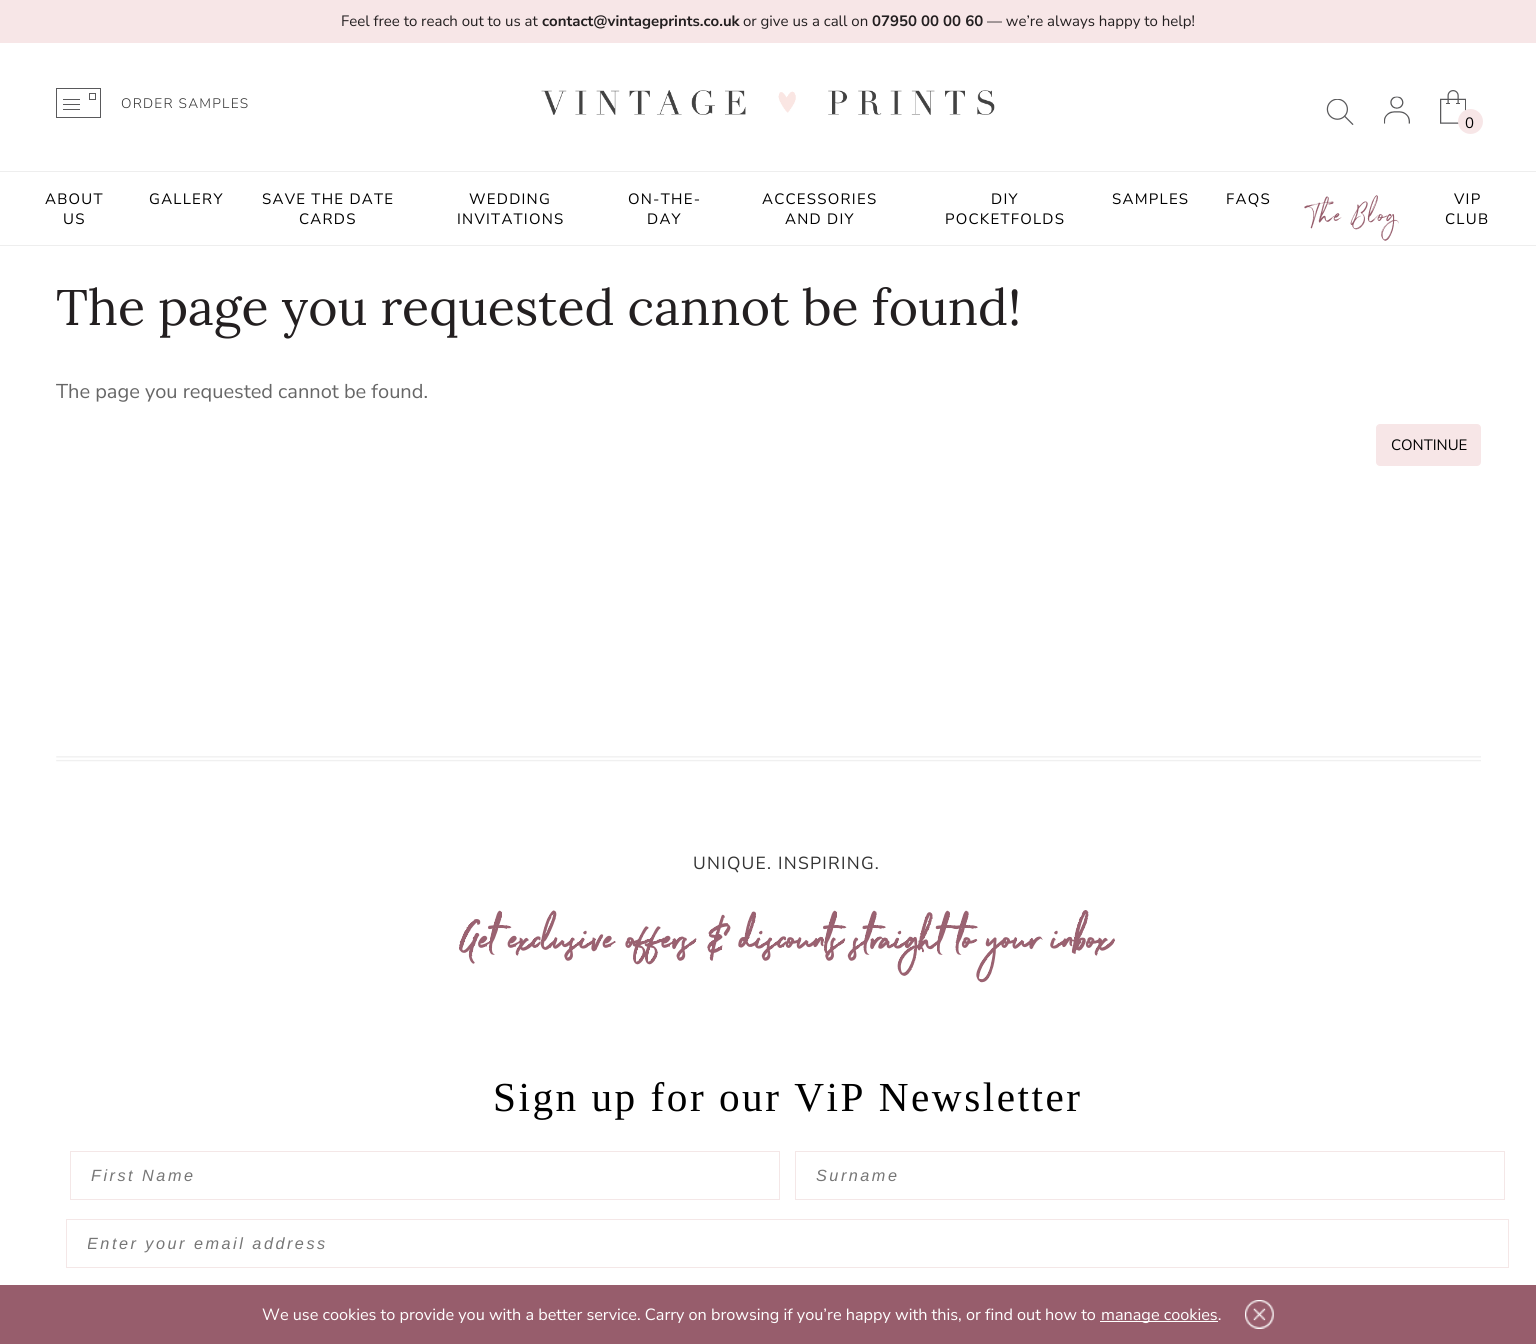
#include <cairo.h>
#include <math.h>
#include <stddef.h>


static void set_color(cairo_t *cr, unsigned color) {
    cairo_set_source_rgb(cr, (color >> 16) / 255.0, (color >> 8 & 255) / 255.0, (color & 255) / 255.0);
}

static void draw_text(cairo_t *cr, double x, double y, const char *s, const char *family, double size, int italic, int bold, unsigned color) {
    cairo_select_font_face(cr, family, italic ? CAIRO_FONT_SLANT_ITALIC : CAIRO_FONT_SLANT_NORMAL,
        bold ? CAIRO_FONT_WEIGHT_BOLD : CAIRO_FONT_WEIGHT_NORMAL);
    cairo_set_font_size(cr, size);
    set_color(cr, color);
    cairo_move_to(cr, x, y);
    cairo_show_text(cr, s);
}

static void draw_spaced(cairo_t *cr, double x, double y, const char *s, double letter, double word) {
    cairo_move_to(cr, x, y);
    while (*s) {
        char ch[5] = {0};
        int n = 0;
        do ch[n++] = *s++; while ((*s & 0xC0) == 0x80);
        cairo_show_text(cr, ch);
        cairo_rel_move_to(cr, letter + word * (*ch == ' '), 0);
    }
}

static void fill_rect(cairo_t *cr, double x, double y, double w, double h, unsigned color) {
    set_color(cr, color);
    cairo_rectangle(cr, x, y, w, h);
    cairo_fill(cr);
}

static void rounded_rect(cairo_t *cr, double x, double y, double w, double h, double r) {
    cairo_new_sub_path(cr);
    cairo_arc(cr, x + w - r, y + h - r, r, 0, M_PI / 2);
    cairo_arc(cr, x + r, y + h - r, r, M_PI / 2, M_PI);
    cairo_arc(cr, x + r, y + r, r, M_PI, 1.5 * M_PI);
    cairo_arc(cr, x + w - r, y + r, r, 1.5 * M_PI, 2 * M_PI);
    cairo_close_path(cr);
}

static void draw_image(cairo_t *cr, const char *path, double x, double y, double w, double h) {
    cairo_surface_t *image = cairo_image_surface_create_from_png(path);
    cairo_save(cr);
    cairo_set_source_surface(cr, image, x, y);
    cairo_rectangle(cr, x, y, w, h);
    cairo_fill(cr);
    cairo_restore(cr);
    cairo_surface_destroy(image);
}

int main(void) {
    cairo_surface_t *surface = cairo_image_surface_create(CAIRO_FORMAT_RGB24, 1536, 1344);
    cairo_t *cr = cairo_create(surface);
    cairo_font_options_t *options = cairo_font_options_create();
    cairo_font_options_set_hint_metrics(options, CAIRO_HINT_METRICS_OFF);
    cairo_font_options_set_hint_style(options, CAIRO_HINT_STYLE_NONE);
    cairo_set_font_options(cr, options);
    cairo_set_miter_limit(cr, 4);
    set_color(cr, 0xFFFFFF);
    cairo_paint(cr);
    fill_rect(cr, 0, 0, 1536, 43, 0xF7E6E7);
    draw_text(cr, 341, 26, "Feel free to reach out to us at", "Nunito Sans", 15, 0, 0, 0x231F20);
    draw_text(cr, 542, 26, "contact@vintageprints.co.uk", "Nunito Sans", 15, 0, 1, 0x231F20);
    draw_text(cr, 743, 26, "or give us a call on", "Nunito Sans", 15, 0, 0, 0x231F20);
    draw_text(cr, 872, 26, "07950 00 00 60", "Nunito Sans", 15, 0, 1, 0x231F20);
    draw_text(cr, 987, 26, "— we’re always happy to help!", "Nunito Sans", 15, 0, 0, 0x231F20);
    cairo_rectangle(cr, 56.5, 88.5, 44, 29);
    set_color(cr, 0x59595B);
    cairo_set_line_width(cr, 1);
    cairo_stroke(cr);
    cairo_rectangle(cr, 89.5, 93.5, 6, 6);
    cairo_stroke(cr);
    fill_rect(cr, 63, 99, 17, 1, 0x59595B);
    fill_rect(cr, 63, 104, 17, 1, 0x59595B);
    fill_rect(cr, 63, 109, 17, 1, 0x59595B);
    cairo_select_font_face(cr, "Nunito Sans Light", CAIRO_FONT_SLANT_NORMAL, CAIRO_FONT_WEIGHT_NORMAL);
    cairo_set_font_size(cr, 13.75);
    set_color(cr, 0x333333);
    draw_spaced(cr, 121, 108, "ORDER SAMPLES", 1.25, 0);
    draw_image(cr, "assets/img1.png", 541, 90, 454, 25);
    draw_image(cr, "assets/img2.png", 1326, 99, 28, 26);
    draw_image(cr, "assets/img3.png", 1384, 96, 26, 28);
    draw_image(cr, "assets/img4.png", 1440, 90, 26, 34);
    set_color(cr, 0xF7E6E7);
    cairo_arc(cr, 1470.5, 121.5, 12.5, 0, 2 * M_PI);
    cairo_fill(cr);
    draw_text(cr, 1465, 128, "0", "Nunito Sans", 15, 0, 0, 0x000000);
    fill_rect(cr, 0, 171, 1536, 1, 0xEEEEEE);
    fill_rect(cr, 0, 245, 1536, 1, 0xEEEEEE);
    set_color(cr, 0x000000);
    draw_spaced(cr, 45, 204, "ABOUT", 1.25, 0);
    draw_spaced(cr, 63, 224, "US", 1.25, 0);
    draw_spaced(cr, 149, 204, "GALLERY", 1.25, 0);
    draw_spaced(cr, 262, 204, "SAVE THE DATE", 1.25, 0);
    draw_spaced(cr, 299, 224, "CARDS", 1.25, 0);
    draw_spaced(cr, 469, 204, "WEDDING", 1.25, 0);
    draw_spaced(cr, 457, 224, "INVITATIONS", 1.25, 0);
    draw_spaced(cr, 628, 204, "ON-THE-", 1.25, 0);
    draw_spaced(cr, 647, 224, "DAY", 1.25, 0);
    draw_spaced(cr, 762, 204, "ACCESSORIES", 1.25, 0);
    draw_spaced(cr, 785, 224, "AND DIY", 1.25, 0);
    draw_spaced(cr, 991, 204, "DIY", 1.25, 0);
    draw_spaced(cr, 945, 224, "POCKETFOLDS", 1.25, 0);
    draw_spaced(cr, 1112, 204, "SAMPLES", 1.25, 0);
    draw_spaced(cr, 1226, 204, "FAQS", 1.25, 0);
    cairo_select_font_face(cr, "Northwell", CAIRO_FONT_SLANT_NORMAL, CAIRO_FONT_WEIGHT_NORMAL);
    cairo_set_font_size(cr, 31);
    set_color(cr, 0x945A69);
    draw_spaced(cr, 1309, 221, "The Blog", 1.25, 0);
    cairo_select_font_face(cr, "Nunito Sans", CAIRO_FONT_SLANT_NORMAL, CAIRO_FONT_WEIGHT_NORMAL);
    cairo_set_font_size(cr, 15);
    set_color(cr, 0x000000);
    draw_spaced(cr, 1454, 204, "VIP", 1.25, 0);
    draw_spaced(cr, 1445, 224, "CLUB", 1.25, 0);
    draw_text(cr, 56, 325, "The page you requested cannot be found!", "Lora", 50, 0, 0, 0x231F20);
    draw_text(cr, 56, 398, "The page you requested cannot be found.", "Nunito Sans", 20, 0, 0, 0x666666);
    set_color(cr, 0xF7E6E7);
    rounded_rect(cr, 1376.5, 424.5, 104, 41, 3.5);
    cairo_fill_preserve(cr);
    cairo_stroke(cr);
    draw_text(cr, 1391, 450, "CONTINUE", "Nunito Sans", 15, 0, 0, 0x000000);
    draw_image(cr, "assets/img5.png", 56, 756, 1425, 6);
    cairo_set_font_size(cr, 17.5);
    set_color(cr, 0x333333);
    draw_spaced(cr, 693, 869, "UNIQUE. INSPIRING.", 1.25, 0);
    draw_text(cr, 461, 948, "Get exclusive offers & discounts straight to your inbox", "Northwell", 43.75, 0, 1, 0x9A6271);
    cairo_select_font_face(cr, "Liberation Serif", CAIRO_FONT_SLANT_NORMAL, CAIRO_FONT_WEIGHT_NORMAL);
    cairo_set_font_size(cr, 41.25);
    set_color(cr, 0x000000);
    draw_spaced(cr, 493, 1111, "Sign up for our ViP Newsletter", 2.5, 0);
    cairo_rectangle(cr, 70.5, 1151.5, 709, 48);
    set_color(cr, 0xF4E7E7);
    cairo_stroke(cr);
    cairo_select_font_face(cr, "Liberation Sans", CAIRO_FONT_SLANT_ITALIC, CAIRO_FONT_WEIGHT_NORMAL);
    cairo_set_font_size(cr, 16.25);
    set_color(cr, 0x767676);
    draw_spaced(cr, 91, 1181, "First Name", 2.5, 0);
    cairo_rectangle(cr, 795.5, 1151.5, 709, 48);
    set_color(cr, 0xF4E7E7);
    cairo_stroke(cr);
    set_color(cr, 0x767676);
    draw_spaced(cr, 816, 1181, "Surname", 2.5, 0);
    cairo_rectangle(cr, 66.5, 1219.5, 1442, 48);
    set_color(cr, 0xF4E7E7);
    cairo_stroke(cr);
    cairo_save(cr);
    cairo_rectangle(cr, 88, 1234, 1420, 19);
    cairo_clip(cr);
    set_color(cr, 0x767676);
    draw_spaced(cr, 87, 1249, "Enter your email address", 2.5, 0);
    cairo_restore(cr);
    fill_rect(cr, 0, 1285, 1536, 59, 0x975D6C);
    draw_text(cr, 262, 1320, "We use cookies to provide you with a better service. Carry on browsing if you’re happy with this, or find out how to", "Nunito Sans", 16.25, 0, 0, 0xFFFFFF);
    fill_rect(cr, 1100, 1321, 118, 1, 0xFFFFFF);
    draw_text(cr, 1101, 1320, "manage cookies.", "Nunito Sans", 16.25, 0, 0, 0xFFFFFF);
    draw_image(cr, "assets/img6.png", 1245, 1300, 29, 29);
    cairo_surface_write_to_png(surface, "output.png");
    cairo_font_options_destroy(options);
    cairo_destroy(cr);
    cairo_surface_destroy(surface);
    return 0;
}
